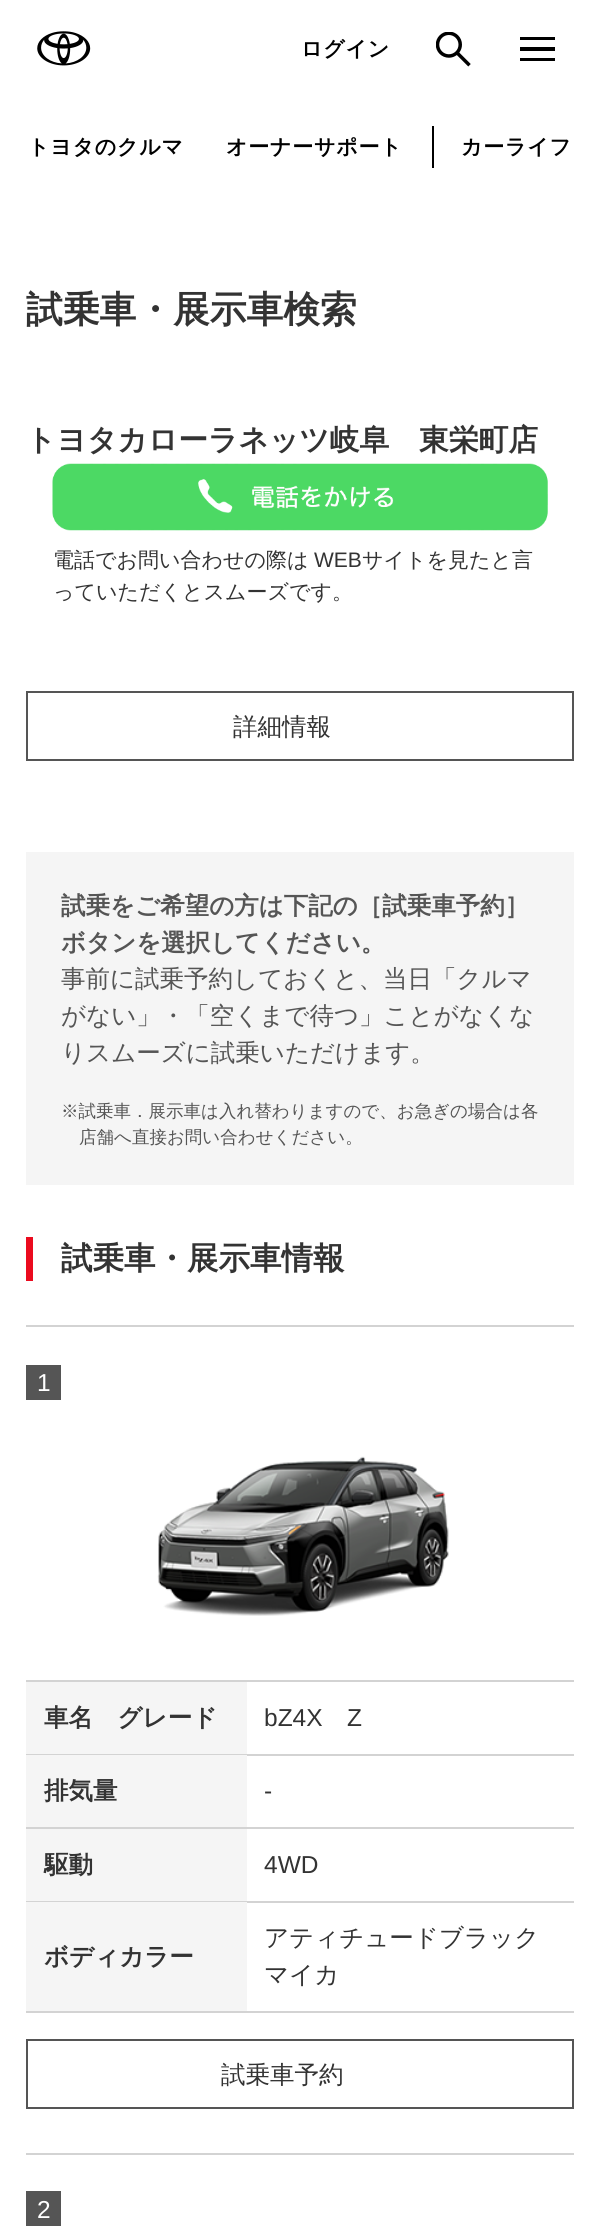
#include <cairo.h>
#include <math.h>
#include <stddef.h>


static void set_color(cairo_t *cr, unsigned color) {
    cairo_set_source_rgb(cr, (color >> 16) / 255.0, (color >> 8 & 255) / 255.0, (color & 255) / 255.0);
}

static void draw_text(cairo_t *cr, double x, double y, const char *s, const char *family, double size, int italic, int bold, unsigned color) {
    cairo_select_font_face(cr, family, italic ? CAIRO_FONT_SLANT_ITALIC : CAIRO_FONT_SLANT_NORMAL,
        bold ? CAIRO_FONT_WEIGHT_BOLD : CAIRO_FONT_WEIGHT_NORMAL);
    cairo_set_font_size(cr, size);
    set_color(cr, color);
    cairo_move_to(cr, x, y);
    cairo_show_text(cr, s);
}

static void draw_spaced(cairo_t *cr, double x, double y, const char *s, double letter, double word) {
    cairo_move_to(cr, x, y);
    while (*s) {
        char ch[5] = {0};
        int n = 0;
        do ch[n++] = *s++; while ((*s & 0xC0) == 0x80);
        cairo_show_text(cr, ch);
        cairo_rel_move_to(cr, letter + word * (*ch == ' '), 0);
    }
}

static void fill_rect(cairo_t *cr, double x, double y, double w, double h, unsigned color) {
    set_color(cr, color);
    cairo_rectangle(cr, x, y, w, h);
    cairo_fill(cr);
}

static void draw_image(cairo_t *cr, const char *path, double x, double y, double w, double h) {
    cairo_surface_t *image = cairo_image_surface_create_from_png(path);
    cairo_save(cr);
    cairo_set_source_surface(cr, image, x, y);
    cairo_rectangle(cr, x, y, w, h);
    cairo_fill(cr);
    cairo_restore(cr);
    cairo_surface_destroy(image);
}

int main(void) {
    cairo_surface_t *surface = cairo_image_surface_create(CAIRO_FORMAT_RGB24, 600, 2234);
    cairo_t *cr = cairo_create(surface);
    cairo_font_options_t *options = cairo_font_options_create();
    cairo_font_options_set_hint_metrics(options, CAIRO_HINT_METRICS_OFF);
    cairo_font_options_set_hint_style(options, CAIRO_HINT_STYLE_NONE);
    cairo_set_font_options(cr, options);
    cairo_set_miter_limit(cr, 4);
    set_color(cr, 0xFFFFFF);
    cairo_paint(cr);
    draw_image(cr, "assets/img1.png", 37, 31, 54, 35);
    cairo_select_font_face(cr, "WenQuanYi Zen Hei", CAIRO_FONT_SLANT_NORMAL, CAIRO_FONT_WEIGHT_BOLD);
    cairo_set_font_size(cr, 21);
    set_color(cr, 0x000000);
    draw_spaced(cr, 301, 56, "ログイン", 0.75, 0);
    draw_image(cr, "assets/img2.png", 436, 32, 35, 35);
    fill_rect(cr, 520, 37, 35, 3, 0x000000);
    fill_rect(cr, 520, 47, 35, 4, 0x000000);
    fill_rect(cr, 520, 58, 35, 3, 0x000000);
    draw_spaced(cr, 28, 154, "トヨタのクルマ", 0.75, 0);
    draw_spaced(cr, 226, 154, "オーナーサポート", 0.75, 0);
    fill_rect(cr, 432, 126, 2, 42, 0x000000);
    draw_spaced(cr, 461, 154, "カーライフ", 0.75, 0);
    draw_text(cr, 26, 322, "試乗車・展示車検索", "WenQuanYi Zen Hei", 36.75, 0, 1, 0x333333);
    draw_text(cr, 26, 450, "トヨタカローラネッツ岐阜　東栄町店", "WenQuanYi Zen Hei", 29.75, 0, 1, 0x333333);
    draw_image(cr, "assets/img3.png", 52, 463, 496, 68);
    draw_text(cr, 53, 567, "電話でお問い合わせの際は", "WenQuanYi Zen Hei Medium", 21, 0, 0, 0x333333);
    draw_text(cr, 314, 567, "WEB", "Liberation Sans", 21, 0, 0, 0x333333);
    draw_text(cr, 362, 567, "サイトを見たと言", "WenQuanYi Zen Hei Medium", 21, 0, 0, 0x333333);
    draw_text(cr, 53, 599, "っていただくとスムーズです。", "WenQuanYi Zen Hei Medium", 21, 0, 0, 0x333333);
    cairo_rectangle(cr, 27, 692, 546, 68);
    set_color(cr, 0x555555);
    cairo_stroke(cr);
    draw_text(cr, 233, 735, "詳細情報", "WenQuanYi Zen Hei Medium", 24.5, 0, 0, 0x333333);
    fill_rect(cr, 26, 852, 548, 333, 0xF5F5F5);
    draw_text(cr, 61, 914, "試乗をご希望の方は下記の［試乗車予約］", "WenQuanYi Zen Hei", 24.5, 0, 1, 0x555555);
    draw_text(cr, 61, 951, "ボタンを選択してください。", "WenQuanYi Zen Hei", 24.5, 0, 1, 0x555555);
    draw_text(cr, 61, 987, "事前に試乗予約しておくと、当日「クルマ", "WenQuanYi Zen Hei Medium", 24.5, 0, 0, 0x555555);
    draw_text(cr, 61, 1024, "がない」・「空くまで待つ」ことがなくな", "WenQuanYi Zen Hei Medium", 24.5, 0, 0, 0x555555);
    draw_text(cr, 61, 1061, "りスムーズに試乗いただけます。", "WenQuanYi Zen Hei Medium", 24.5, 0, 0, 0x555555);
    draw_text(cr, 61, 1117, "※試乗車．展示車は入れ替わりますので、お急ぎの場合は各", "WenQuanYi Zen Hei Medium", 17.5, 0, 0, 0x555555);
    draw_text(cr, 79, 1143, "店舗へ直接お問い合わせください。", "WenQuanYi Zen Hei Medium", 17.5, 0, 0, 0x555555);
    fill_rect(cr, 26, 1237, 7, 44, 0xEB0A1E);
    draw_text(cr, 61, 1269, "試乗車・展示車情報", "WenQuanYi Zen Hei", 31.5, 0, 1, 0x333333);
    fill_rect(cr, 26, 1325, 548, 2, 0xD3D3D3);
    fill_rect(cr, 26, 1365, 35, 35, 0x555555);
    draw_text(cr, 37, 1391, "1", "Liberation Sans", 24.5, 0, 0, 0xFFFFFF);
    draw_image(cr, "assets/img4.png", 157, 1456, 292, 160);
    fill_rect(cr, 26, 1680, 548, 2, 0xD3D3D3);
    fill_rect(cr, 26, 1682, 221, 72, 0xF5F5F5);
    draw_text(cr, 44, 1726, "車名　グレード", "WenQuanYi Zen Hei", 24.5, 0, 1, 0x333333);
    draw_text(cr, 264, 1726, "bZ4X", "Liberation Sans", 24.5, 0, 0, 0x333333);
    draw_text(cr, 347, 1726, "Z", "Liberation Sans", 24.5, 0, 0, 0x333333);
    fill_rect(cr, 26, 1754, 548, 2, 0xD3D3D3);
    fill_rect(cr, 26, 1755, 221, 72, 0xF5F5F5);
    draw_text(cr, 44, 1799, "排気量", "WenQuanYi Zen Hei", 24.5, 0, 1, 0x333333);
    draw_text(cr, 264, 1799, "-", "Liberation Sans", 24.5, 0, 0, 0x333333);
    fill_rect(cr, 26, 1827, 548, 2, 0xD3D3D3);
    fill_rect(cr, 26, 1829, 221, 72, 0xF5F5F5);
    draw_text(cr, 44, 1873, "駆動", "WenQuanYi Zen Hei", 24.5, 0, 1, 0x333333);
    draw_text(cr, 264, 1873, "4WD", "Liberation Sans", 24.5, 0, 0, 0x333333);
    fill_rect(cr, 26, 1901, 548, 2, 0xD3D3D3);
    fill_rect(cr, 26, 1902, 221, 109, 0xF5F5F5);
    draw_text(cr, 44, 1965, "ボディカラー", "WenQuanYi Zen Hei", 24.5, 0, 1, 0x333333);
    draw_text(cr, 264, 1946, "アティチュードブラック", "WenQuanYi Zen Hei Medium", 24.5, 0, 0, 0x333333);
    draw_text(cr, 264, 1983, "マイカ", "WenQuanYi Zen Hei Medium", 24.5, 0, 0, 0x333333);
    fill_rect(cr, 26, 2011, 548, 2, 0xD3D3D3);
    cairo_rectangle(cr, 27, 2040, 546, 68);
    set_color(cr, 0x555555);
    cairo_stroke(cr);
    draw_text(cr, 221, 2083, "試乗車予約", "WenQuanYi Zen Hei Medium", 24.5, 0, 0, 0x333333);
    fill_rect(cr, 26, 2153, 548, 2, 0xD3D3D3);
    fill_rect(cr, 26, 2191, 35, 35, 0x555555);
    draw_text(cr, 37, 2218, "2", "Liberation Sans", 24.5, 0, 0, 0xFFFFFF);
    cairo_surface_write_to_png(surface, "output.png");
    cairo_font_options_destroy(options);
    cairo_destroy(cr);
    cairo_surface_destroy(surface);
    return 0;
}
